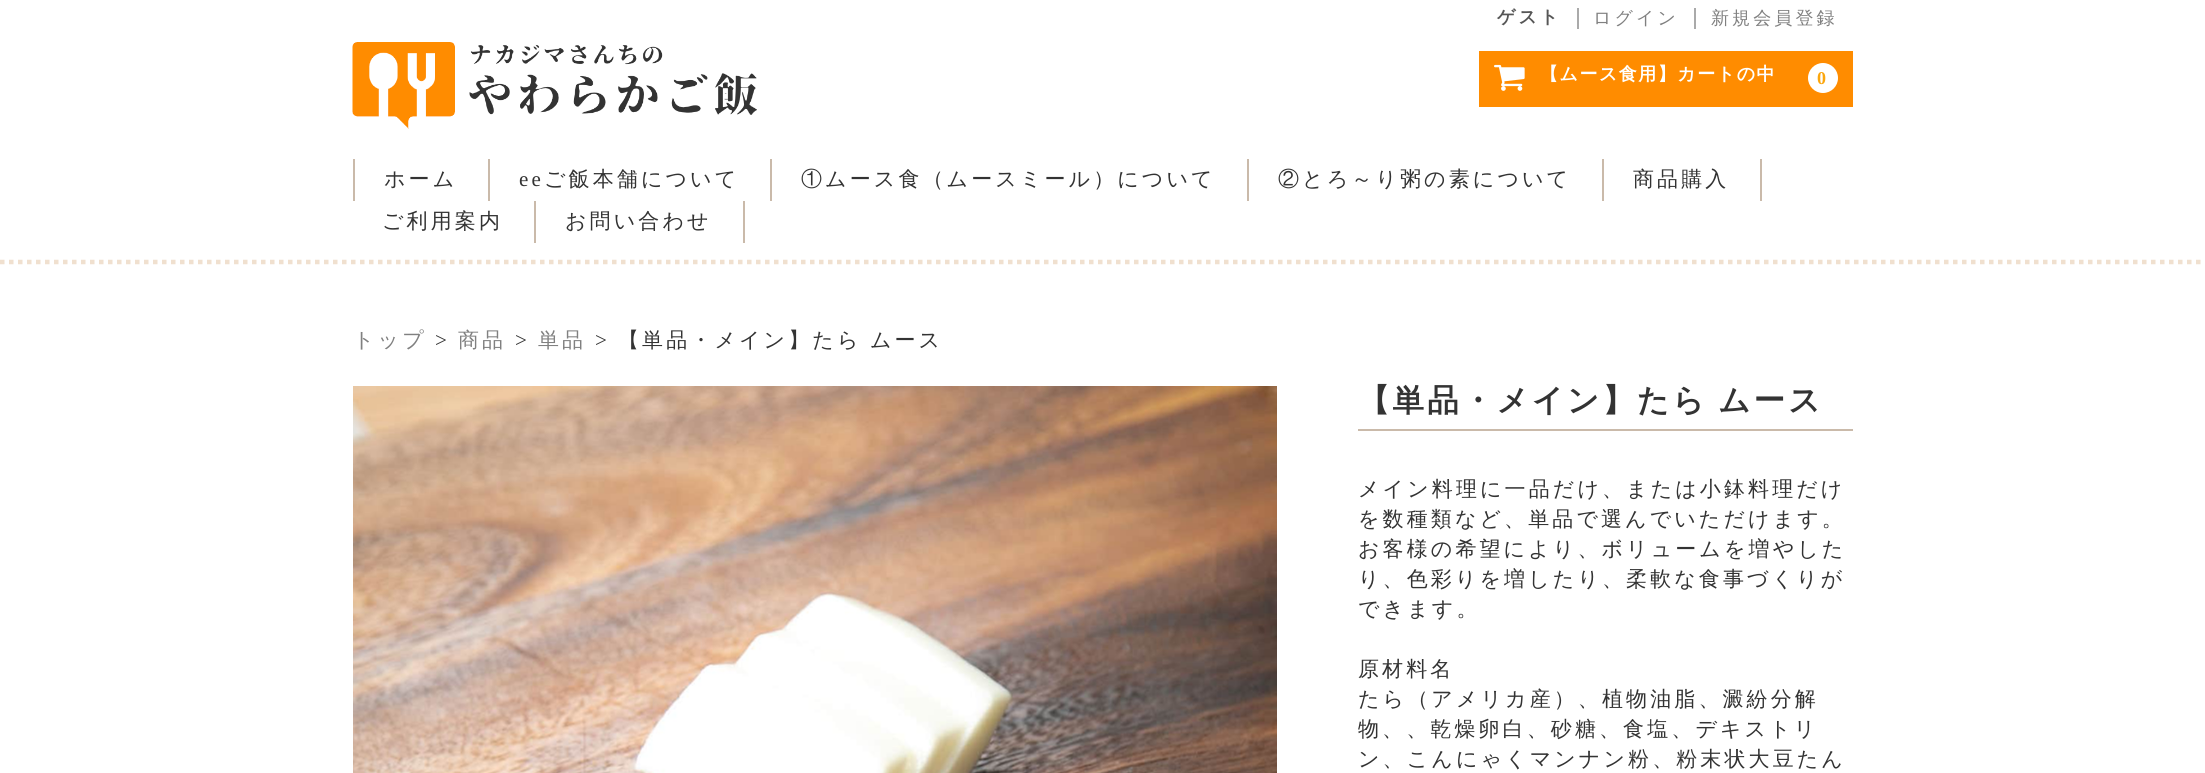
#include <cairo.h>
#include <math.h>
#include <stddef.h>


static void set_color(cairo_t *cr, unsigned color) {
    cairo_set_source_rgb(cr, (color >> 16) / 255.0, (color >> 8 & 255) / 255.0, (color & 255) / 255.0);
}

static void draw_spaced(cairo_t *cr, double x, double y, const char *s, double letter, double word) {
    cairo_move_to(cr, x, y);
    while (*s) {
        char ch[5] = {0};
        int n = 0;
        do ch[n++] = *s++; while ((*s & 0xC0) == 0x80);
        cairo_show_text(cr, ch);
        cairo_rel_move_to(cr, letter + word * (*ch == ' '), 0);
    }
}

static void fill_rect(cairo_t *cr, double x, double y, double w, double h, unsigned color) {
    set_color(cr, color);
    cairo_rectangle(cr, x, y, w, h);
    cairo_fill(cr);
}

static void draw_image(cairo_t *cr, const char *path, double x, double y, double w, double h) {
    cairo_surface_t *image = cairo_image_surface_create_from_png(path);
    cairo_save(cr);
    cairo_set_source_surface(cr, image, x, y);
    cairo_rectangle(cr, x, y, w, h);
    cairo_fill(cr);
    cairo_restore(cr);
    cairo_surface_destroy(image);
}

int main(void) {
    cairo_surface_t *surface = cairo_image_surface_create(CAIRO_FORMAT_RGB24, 2205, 773);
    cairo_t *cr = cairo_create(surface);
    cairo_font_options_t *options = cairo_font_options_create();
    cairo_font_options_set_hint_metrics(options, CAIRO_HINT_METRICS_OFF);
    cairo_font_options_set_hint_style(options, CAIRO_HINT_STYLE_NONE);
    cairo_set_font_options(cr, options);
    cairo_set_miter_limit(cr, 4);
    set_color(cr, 0xFFFFFF);
    cairo_paint(cr);
    cairo_new_path(cr);
    cairo_move_to(cr, 0, 262);
    cairo_line_to(cr, 2205, 262);
    set_color(cr, 0xF0E0CF);
    cairo_set_line_width(cr, 4.5);
    cairo_set_dash(cr, (double[]){4.5, 4.5}, 2, 0);
    cairo_stroke(cr);
    draw_image(cr, "assets/img1.png", 352, 42, 405, 87);
    fill_rect(cr, 1577, 8, 2, 21, 0xAAAAAA);
    cairo_select_font_face(cr, "WenQuanYi Zen Hei", CAIRO_FONT_SLANT_NORMAL, CAIRO_FONT_WEIGHT_BOLD);
    cairo_set_font_size(cr, 18);
    set_color(cr, 0x565656);
    draw_spaced(cr, 1497, 23, "ゲスト", 3.1, 0);
    fill_rect(cr, 1694, 8, 2, 21, 0xAAAAAA);
    cairo_select_font_face(cr, "WenQuanYi Zen Hei Medium", CAIRO_FONT_SLANT_NORMAL, CAIRO_FONT_WEIGHT_NORMAL);
    set_color(cr, 0x808080);
    draw_spaced(cr, 1593, 24, "ログイン", 3.1, 0);
    draw_spaced(cr, 1711, 24, "新規会員登録", 3.1, 0);
    fill_rect(cr, 1479, 51, 374, 56, 0xFF8C00);
    draw_image(cr, "assets/img2.png", 1494, 64, 31, 27);
    cairo_select_font_face(cr, "WenQuanYi Zen Hei", CAIRO_FONT_SLANT_NORMAL, CAIRO_FONT_WEIGHT_BOLD);
    set_color(cr, 0xFFFFFF);
    draw_spaced(cr, 1540, 80, "【ムース食用】カートの中", 1.5, 0);
    cairo_new_path(cr);
    cairo_arc(cr, 1823, 78, 15, 0, 2 * M_PI);
    cairo_fill(cr);
    cairo_select_font_face(cr, "Liberation Serif", CAIRO_FONT_SLANT_NORMAL, CAIRO_FONT_WEIGHT_BOLD);
    set_color(cr, 0xFBA60D);
    draw_spaced(cr, 1817, 84, "0", 1.5, 0);
    fill_rect(cr, 488, 159, 2, 42, 0xCABAAA);
    fill_rect(cr, 353, 159, 2, 42, 0xCABAAA);
    cairo_select_font_face(cr, "WenQuanYi Zen Hei Medium", CAIRO_FONT_SLANT_NORMAL, CAIRO_FONT_WEIGHT_NORMAL);
    cairo_set_font_size(cr, 21);
    set_color(cr, 0x333333);
    draw_spaced(cr, 384, 186, "ホーム", 3.1, 0);
    fill_rect(cr, 770, 159, 2, 42, 0xCABAAA);
    cairo_select_font_face(cr, "Liberation Serif", CAIRO_FONT_SLANT_NORMAL, CAIRO_FONT_WEIGHT_NORMAL);
    set_color(cr, 0x333333);
    draw_spaced(cr, 519, 186, "ee", 3.1, 0);
    cairo_select_font_face(cr, "WenQuanYi Zen Hei Medium", CAIRO_FONT_SLANT_NORMAL, CAIRO_FONT_WEIGHT_NORMAL);
    draw_spaced(cr, 544, 186, "ご飯本舗について", 3.1, 0);
    fill_rect(cr, 1247, 159, 2, 42, 0xCABAAA);
    set_color(cr, 0x333333);
    draw_spaced(cr, 801, 186, "①ムース食（ムースミール）について", 3.1, 0);
    fill_rect(cr, 1602, 159, 2, 42, 0xCABAAA);
    set_color(cr, 0x333333);
    draw_spaced(cr, 1278, 186, "②とろ～り粥の素について", 3.1, 0);
    fill_rect(cr, 1760, 159, 2, 42, 0xCABAAA);
    set_color(cr, 0x333333);
    draw_spaced(cr, 1633, 186, "商品購入", 3.1, 0);
    fill_rect(cr, 534, 201, 2, 42, 0xCABAAA);
    set_color(cr, 0x333333);
    draw_spaced(cr, 382, 228, "ご利用案内", 3.1, 0);
    fill_rect(cr, 743, 201, 2, 42, 0xCABAAA);
    set_color(cr, 0x333333);
    draw_spaced(cr, 565, 228, "お問い合わせ", 3.1, 0);
    set_color(cr, 0x808080);
    draw_spaced(cr, 353, 347, "トップ", 3.1, 0);
    cairo_select_font_face(cr, "Liberation Serif", CAIRO_FONT_SLANT_NORMAL, CAIRO_FONT_WEIGHT_NORMAL);
    set_color(cr, 0x333333);
    draw_spaced(cr, 435, 347, ">", 3.1, 0);
    cairo_select_font_face(cr, "WenQuanYi Zen Hei Medium", CAIRO_FONT_SLANT_NORMAL, CAIRO_FONT_WEIGHT_NORMAL);
    set_color(cr, 0x808080);
    draw_spaced(cr, 458, 347, "商品", 3.1, 0);
    cairo_select_font_face(cr, "Liberation Serif", CAIRO_FONT_SLANT_NORMAL, CAIRO_FONT_WEIGHT_NORMAL);
    set_color(cr, 0x333333);
    draw_spaced(cr, 515, 347, ">", 3.1, 0);
    cairo_select_font_face(cr, "WenQuanYi Zen Hei Medium", CAIRO_FONT_SLANT_NORMAL, CAIRO_FONT_WEIGHT_NORMAL);
    set_color(cr, 0x808080);
    draw_spaced(cr, 538, 347, "単品", 3.1, 0);
    cairo_select_font_face(cr, "Liberation Serif", CAIRO_FONT_SLANT_NORMAL, CAIRO_FONT_WEIGHT_NORMAL);
    set_color(cr, 0x333333);
    draw_spaced(cr, 595, 347, ">", 3.1, 0);
    cairo_select_font_face(cr, "WenQuanYi Zen Hei Medium", CAIRO_FONT_SLANT_NORMAL, CAIRO_FONT_WEIGHT_NORMAL);
    draw_spaced(cr, 618, 347, "【単品・メイン】たら ムース", 3.1, -1);
    draw_image(cr, "assets/img3.png", 353, 386, 924, 387);
    fill_rect(cr, 1358, 429, 495, 2, 0xCABAAA);
    cairo_select_font_face(cr, "WenQuanYi Zen Hei", CAIRO_FONT_SLANT_NORMAL, CAIRO_FONT_WEIGHT_BOLD);
    cairo_set_font_size(cr, 31.5);
    set_color(cr, 0x333333);
    draw_spaced(cr, 1358, 411, "【単品・メイン】たら ムース", 3.1, -2);
    cairo_select_font_face(cr, "WenQuanYi Zen Hei Medium", CAIRO_FONT_SLANT_NORMAL, CAIRO_FONT_WEIGHT_NORMAL);
    cairo_set_font_size(cr, 21);
    draw_spaced(cr, 1358, 496, "メイン料理に一品だけ、または小鉢料理だけ", 3.1, 0);
    draw_spaced(cr, 1358, 526, "を数種類など、単品で選んでいただけます。", 3.1, 0);
    draw_spaced(cr, 1358, 556, "お客様の希望により、ボリュームを増やした", 3.1, 0);
    draw_spaced(cr, 1358, 586, "り、色彩りを増したり、柔軟な食事づくりが", 3.1, 0);
    draw_spaced(cr, 1358, 616, "できます。", 3.1, 0);
    draw_spaced(cr, 1358, 676, "原材料名", 3.1, 0);
    draw_spaced(cr, 1358, 706, "たら（アメリカ産）、植物油脂、澱紛分解", 3.1, 0);
    draw_spaced(cr, 1358, 736, "物、、乾燥卵白、砂糖、食塩、デキストリ", 3.1, 0);
    draw_spaced(cr, 1358, 766, "ン、こんにゃくマンナン粉、粉末状大豆たん", 3.1, 0);
    cairo_surface_write_to_png(surface, "output.png");
    cairo_font_options_destroy(options);
    cairo_destroy(cr);
    cairo_surface_destroy(surface);
    return 0;
}
